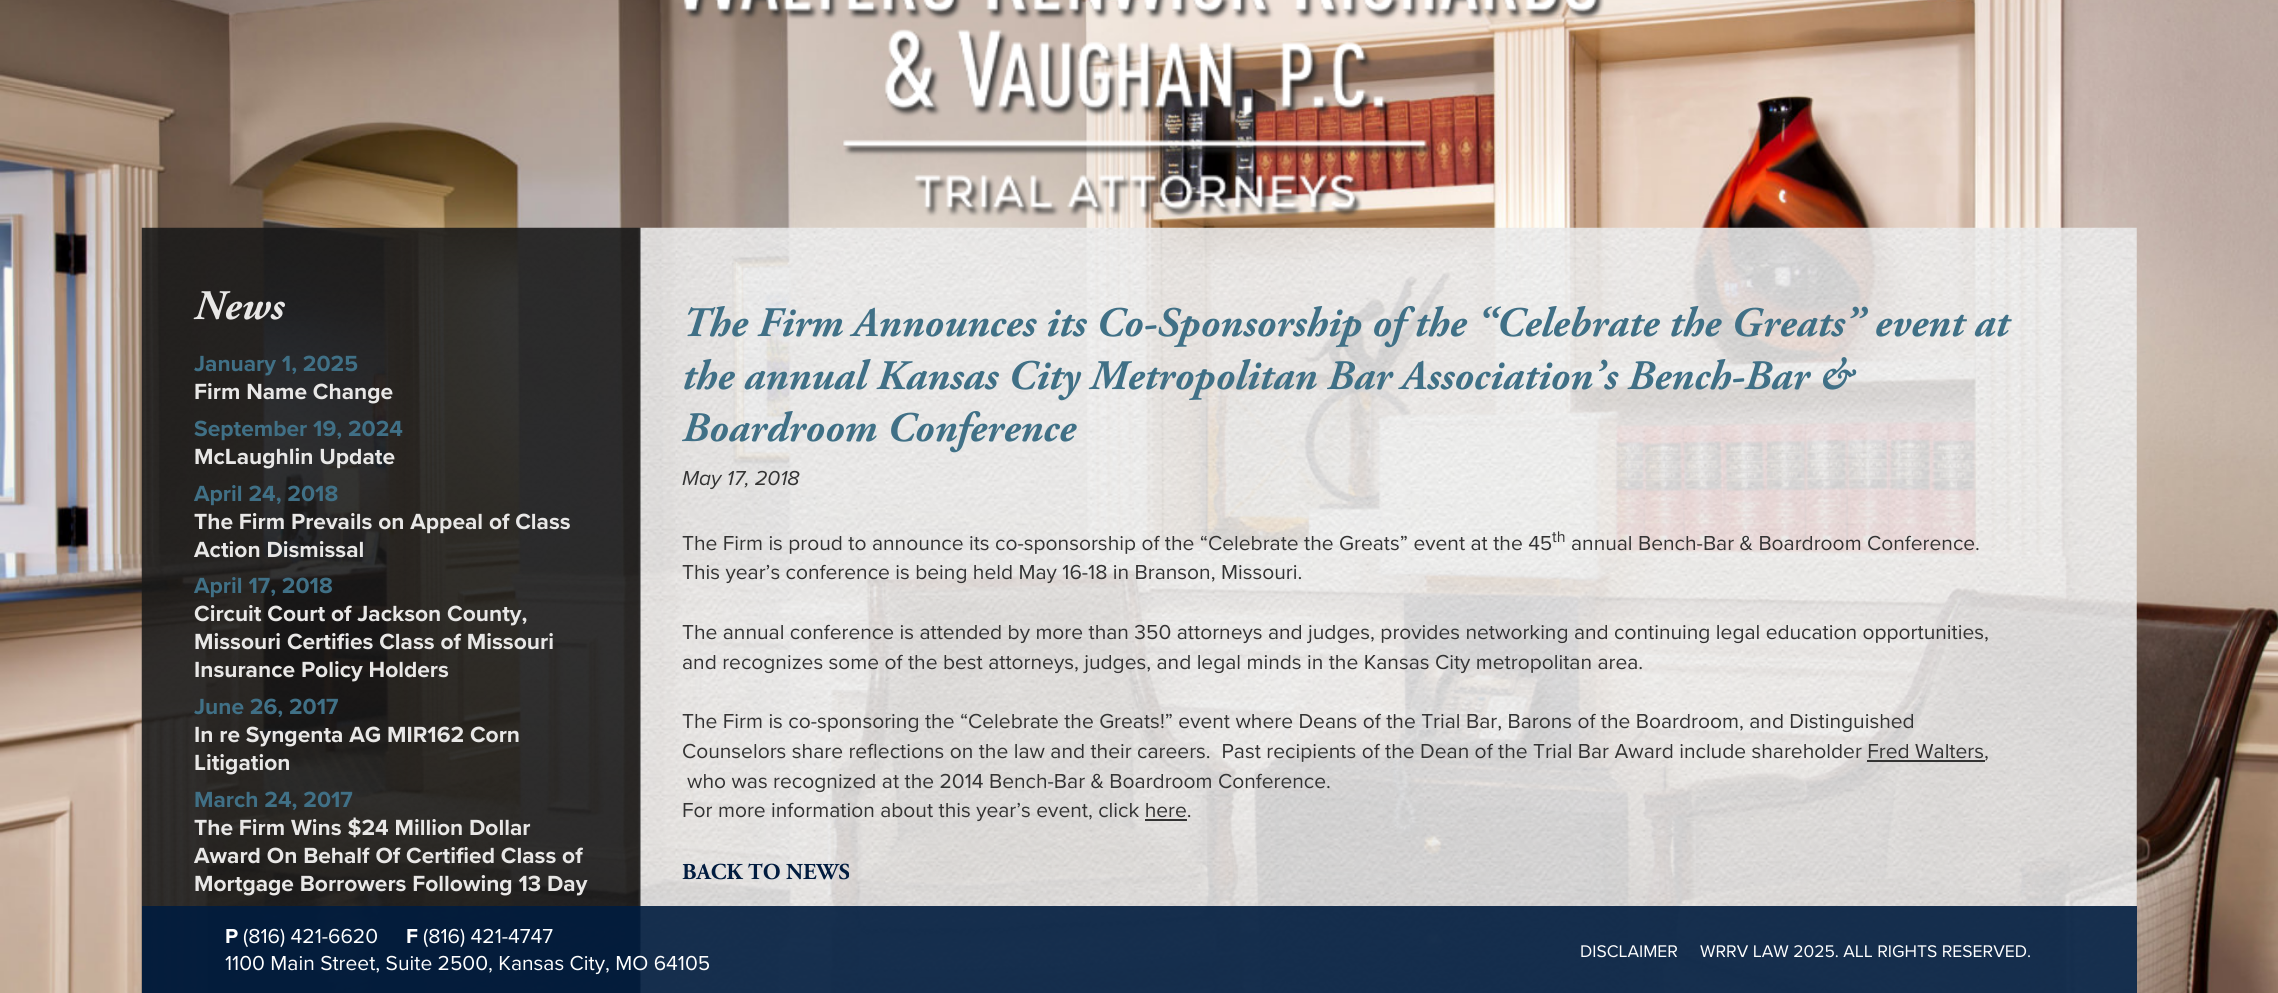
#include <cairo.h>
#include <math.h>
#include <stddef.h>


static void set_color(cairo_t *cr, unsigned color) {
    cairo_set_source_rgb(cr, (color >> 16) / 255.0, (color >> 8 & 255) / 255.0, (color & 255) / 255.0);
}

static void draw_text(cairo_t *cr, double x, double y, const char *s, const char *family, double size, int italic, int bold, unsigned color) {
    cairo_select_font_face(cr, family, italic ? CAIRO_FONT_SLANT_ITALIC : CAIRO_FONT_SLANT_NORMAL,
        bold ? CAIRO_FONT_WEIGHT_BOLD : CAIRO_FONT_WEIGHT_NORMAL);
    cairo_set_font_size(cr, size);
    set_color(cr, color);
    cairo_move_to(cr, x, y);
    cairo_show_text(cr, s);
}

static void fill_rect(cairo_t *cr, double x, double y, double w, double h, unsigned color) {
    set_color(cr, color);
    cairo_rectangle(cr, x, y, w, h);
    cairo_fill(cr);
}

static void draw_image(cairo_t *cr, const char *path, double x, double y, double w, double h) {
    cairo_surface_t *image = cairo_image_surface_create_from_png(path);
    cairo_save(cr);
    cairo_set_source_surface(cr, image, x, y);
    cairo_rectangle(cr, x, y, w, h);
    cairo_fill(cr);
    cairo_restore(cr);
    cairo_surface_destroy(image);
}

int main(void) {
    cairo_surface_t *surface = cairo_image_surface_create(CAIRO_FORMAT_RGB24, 2278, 993);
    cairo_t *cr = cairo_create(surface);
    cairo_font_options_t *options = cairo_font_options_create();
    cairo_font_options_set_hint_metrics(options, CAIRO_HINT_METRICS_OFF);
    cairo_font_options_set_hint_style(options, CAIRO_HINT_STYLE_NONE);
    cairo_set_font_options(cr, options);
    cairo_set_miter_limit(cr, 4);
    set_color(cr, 0xFFFFFF);
    cairo_paint(cr);
    draw_image(cr, "assets/img1.png", 0, 0, 2278, 993);
    draw_image(cr, "assets/img2.png", 683, 0, 921, 217);
    draw_image(cr, "assets/img3.png", 141, 227, 1996, 766);
    draw_text(cr, 194, 319, "News", "Adobe Garamond", 42, 1, 1, 0xE8E7E6);
    draw_text(cr, 194, 371, "January 1, 2025", "Proxima Nova", 22.75, 0, 1, 0x407086);
    draw_text(cr, 194, 399, "Firm Name Change", "Proxima Nova", 22.75, 0, 1, 0xE8E7E6);
    draw_text(cr, 194, 436, "September 19, 2024", "Proxima Nova", 22.75, 0, 1, 0x407086);
    draw_text(cr, 194, 464, "McLaughlin Update", "Proxima Nova", 22.75, 0, 1, 0xE8E7E6);
    draw_text(cr, 194, 501, "April 24, 2018", "Proxima Nova", 22.75, 0, 1, 0x407086);
    draw_text(cr, 194, 529, "The Firm Prevails on Appeal of Class", "Proxima Nova", 22.75, 0, 1, 0xE8E7E6);
    draw_text(cr, 194, 557, "Action Dismissal", "Proxima Nova", 22.75, 0, 1, 0xE8E7E6);
    draw_text(cr, 194, 593, "April 17, 2018", "Proxima Nova", 22.75, 0, 1, 0x407086);
    draw_text(cr, 194, 621, "Circuit Court of Jackson County,", "Proxima Nova", 22.75, 0, 1, 0xE8E7E6);
    draw_text(cr, 194, 649, "Missouri Certifies Class of Missouri", "Proxima Nova", 22.75, 0, 1, 0xE8E7E6);
    draw_text(cr, 194, 677, "Insurance Policy Holders", "Proxima Nova", 22.75, 0, 1, 0xE8E7E6);
    draw_text(cr, 194, 714, "June 26, 2017", "Proxima Nova", 22.75, 0, 1, 0x407086);
    draw_text(cr, 194, 742, "In re Syngenta AG MIR162 Corn", "Proxima Nova", 22.75, 0, 1, 0xE8E7E6);
    draw_text(cr, 194, 770, "Litigation", "Proxima Nova", 22.75, 0, 1, 0xE8E7E6);
    draw_text(cr, 194, 807, "March 24, 2017", "Proxima Nova", 22.75, 0, 1, 0x407086);
    draw_text(cr, 194, 835, "The Firm Wins $24 Million Dollar", "Proxima Nova", 22.75, 0, 1, 0xE8E7E6);
    draw_text(cr, 194, 863, "Award On Behalf Of Certified Class of", "Proxima Nova", 22.75, 0, 1, 0xE8E7E6);
    draw_text(cr, 194, 891, "Mortgage Borrowers Following 13 Day", "Proxima Nova", 22.75, 0, 1, 0xE8E7E6);
    draw_text(cr, 682, 336, "The Firm Announces its Co-Sponsorship of the “Celebrate the Greats” event at", "Adobe Garamond", 42, 1, 1, 0x407086);
    draw_text(cr, 682, 389, "the annual Kansas City Metropolitan Bar Association’s Bench-Bar &", "Adobe Garamond", 42, 1, 1, 0x407086);
    draw_text(cr, 682, 441, "Boardroom Conference", "Adobe Garamond", 42, 1, 1, 0x407086);
    draw_text(cr, 682, 485, "May 17, 2018", "Proxima Nova", 21, 1, 0, 0x333333);
    draw_text(cr, 682, 550, "The Firm is proud to announce its co-sponsorship of the “Celebrate the Greats” event at the 45", "Proxima Nova", 21, 0, 0, 0x333333);
    draw_text(cr, 1552, 542, "th", "Proxima Nova", 16, 0, 0, 0x333333);
    draw_text(cr, 1571, 550, "annual Bench-Bar & Boardroom Conference.", "Proxima Nova", 21, 0, 0, 0x333333);
    draw_text(cr, 682, 579, "This year’s conference is being held May 16-18 in Branson, Missouri.", "Proxima Nova", 21, 0, 0, 0x333333);
    draw_text(cr, 682, 639, "The annual conference is attended by more than 350 attorneys and judges, provides networking and continuing legal education opportunities,", "Proxima Nova", 21, 0, 0, 0x333333);
    draw_text(cr, 682, 669, "and recognizes some of the best attorneys, judges, and legal minds in the Kansas City metropolitan area.", "Proxima Nova", 21, 0, 0, 0x333333);
    draw_text(cr, 682, 728, "The Firm is co-sponsoring the “Celebrate the Greats!” event where Deans of the Trial Bar, Barons of the Boardroom, and Distinguished", "Proxima Nova", 21, 0, 0, 0x333333);
    draw_text(cr, 682, 758, "Counselors share reflections on the law and their careers.  Past recipients of the Dean of the Trial Bar Award include shareholder Fred Walters,", "Proxima Nova", 21, 0, 0, 0x333333);
    fill_rect(cr, 1867, 760, 118, 2, 0x333333);
    draw_text(cr, 687, 788, "who was recognized at the 2014 Bench-Bar & Boardroom Conference.", "Proxima Nova", 21, 0, 0, 0x333333);
    draw_text(cr, 682, 817, "For more information about this year’s event, click here.", "Proxima Nova", 21, 0, 0, 0x333333);
    fill_rect(cr, 1145, 819, 42, 2, 0x333333);
    draw_text(cr, 682, 879, "BACK TO NEWS", "Adobe Garamond", 22.75, 0, 1, 0x011C3F);
    cairo_set_source_rgba(cr, 0.004, 0.11, 0.247, 0.9);
    cairo_rectangle(cr, 142, 906, 1995, 87);
    cairo_fill(cr);
    draw_text(cr, 225, 943, "P", "Proxima Nova", 21, 0, 1, 0xFFFFFF);
    draw_text(cr, 243, 943, "(816) 421-6620", "Proxima Nova", 21, 0, 0, 0xFFFFFF);
    draw_text(cr, 406, 943, "F", "Proxima Nova", 21, 0, 1, 0xFFFFFF);
    draw_text(cr, 423, 943, "(816) 421-4747", "Proxima Nova", 21, 0, 0, 0xFFFFFF);
    draw_text(cr, 225, 970, "1100 Main Street, Suite 2500, Kansas City, MO 64105", "Proxima Nova", 21, 0, 0, 0xFFFFFF);
    draw_text(cr, 1580, 957, "DISCLAIMER", "Proxima Nova", 17.5, 0, 0, 0xFFFFFF);
    draw_text(cr, 1700, 957, "WRRV LAW 2025. ALL RIGHTS RESERVED.", "Proxima Nova", 17.5, 0, 0, 0xFFFFFF);
    cairo_surface_write_to_png(surface, "output.png");
    cairo_font_options_destroy(options);
    cairo_destroy(cr);
    cairo_surface_destroy(surface);
    return 0;
}
